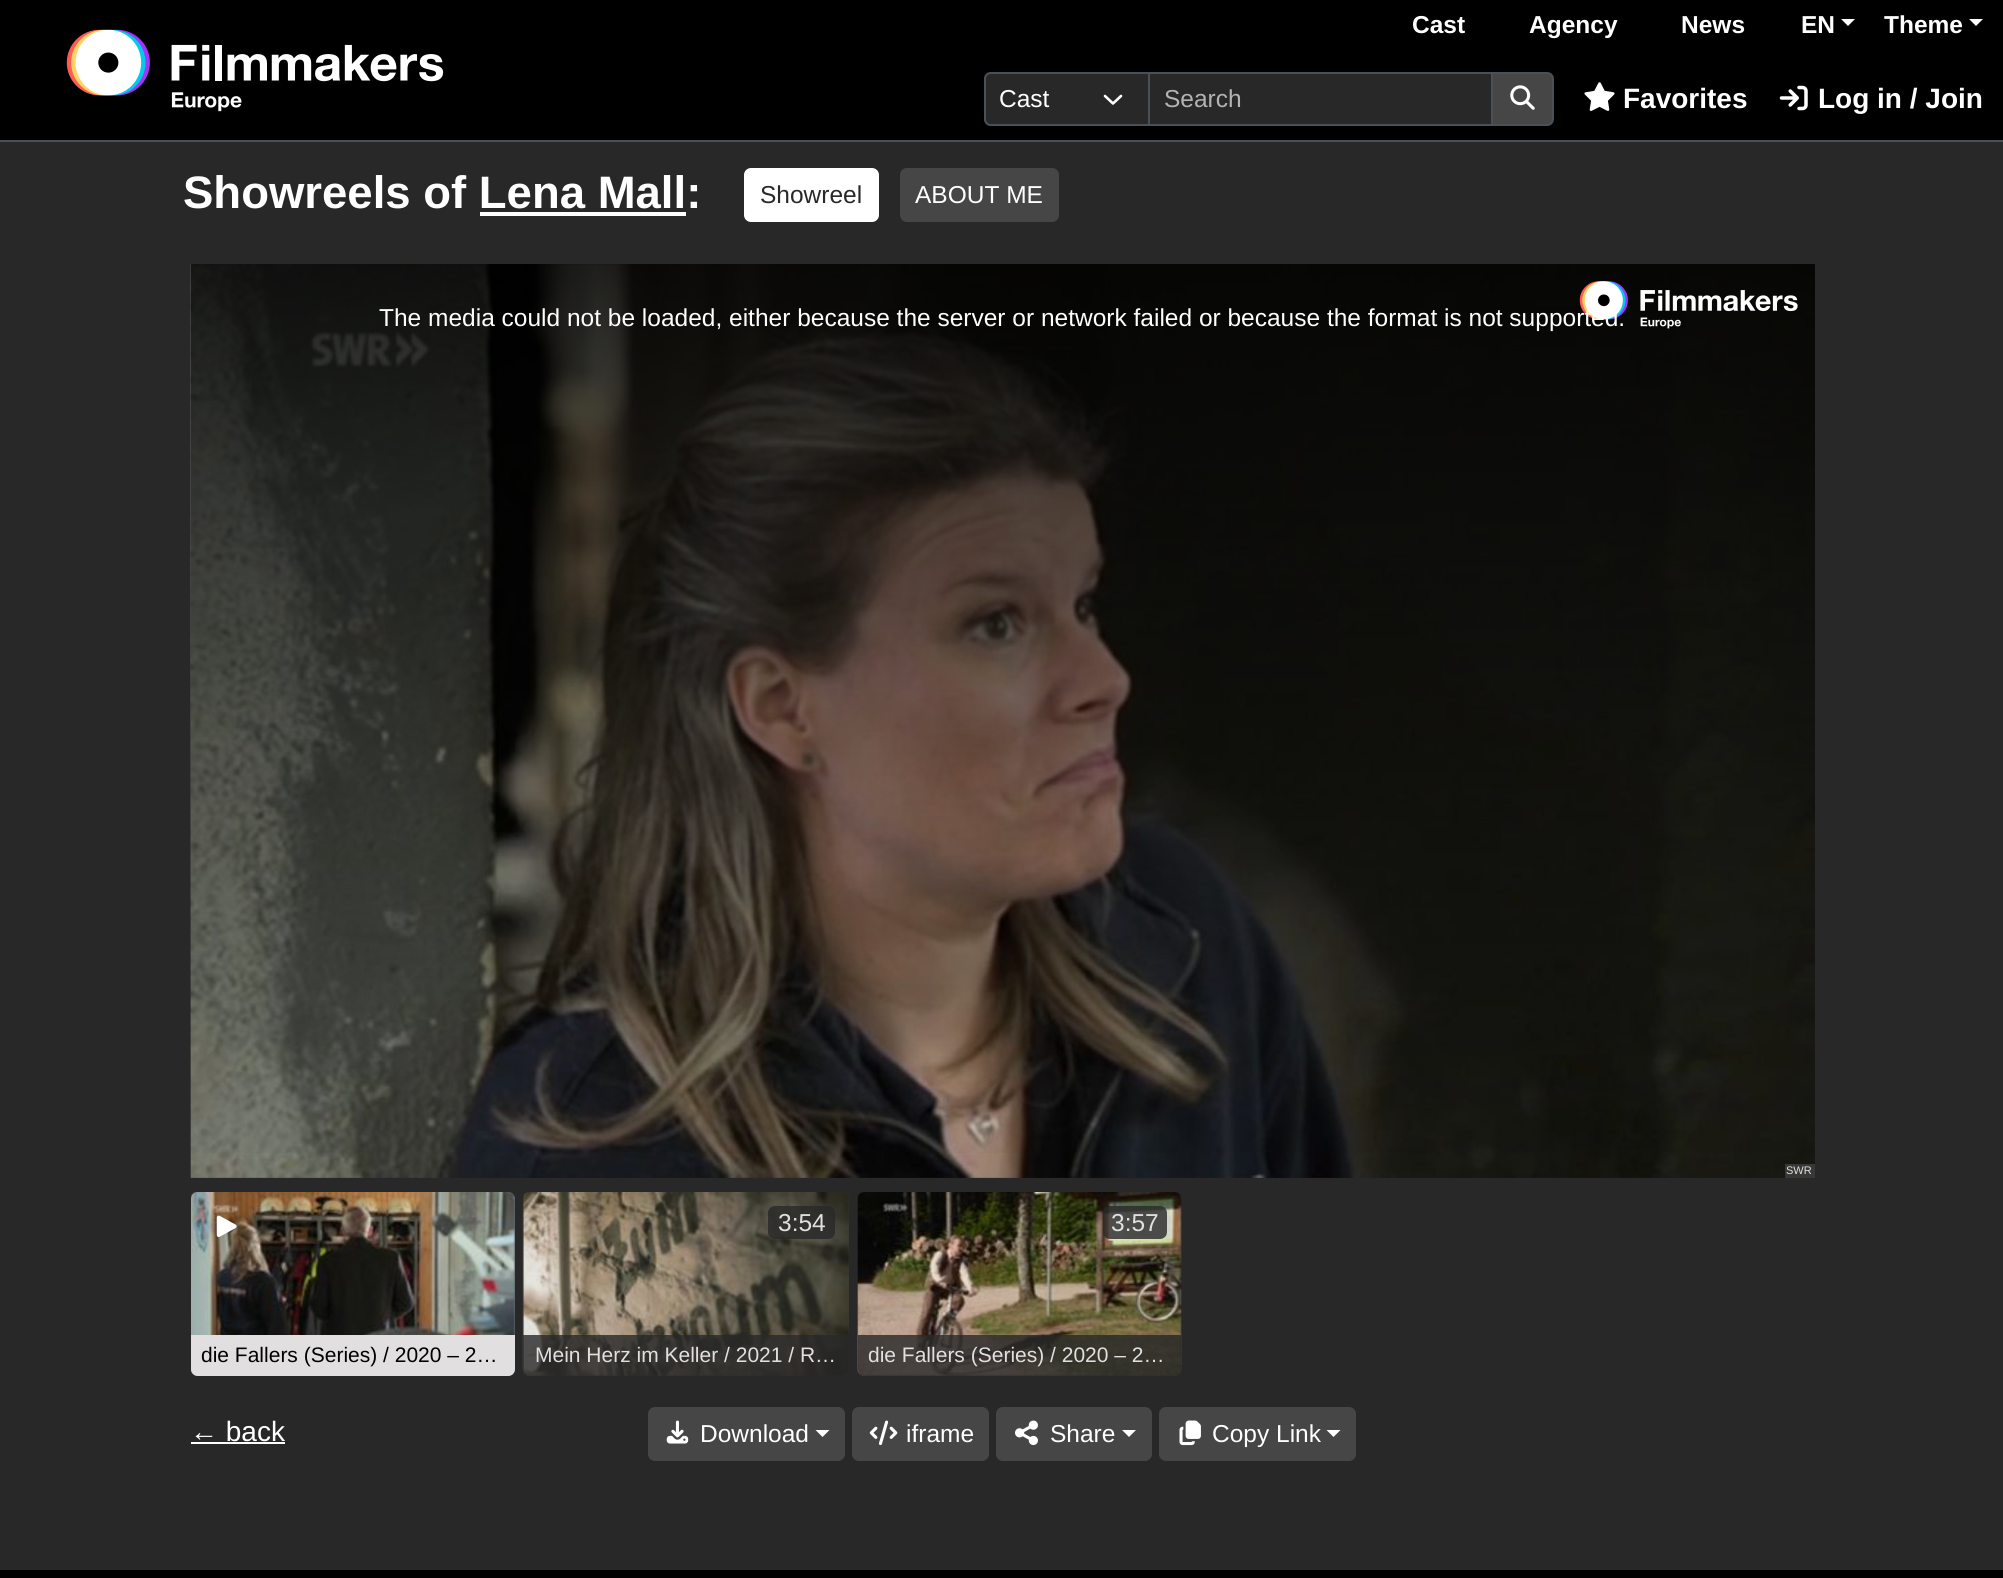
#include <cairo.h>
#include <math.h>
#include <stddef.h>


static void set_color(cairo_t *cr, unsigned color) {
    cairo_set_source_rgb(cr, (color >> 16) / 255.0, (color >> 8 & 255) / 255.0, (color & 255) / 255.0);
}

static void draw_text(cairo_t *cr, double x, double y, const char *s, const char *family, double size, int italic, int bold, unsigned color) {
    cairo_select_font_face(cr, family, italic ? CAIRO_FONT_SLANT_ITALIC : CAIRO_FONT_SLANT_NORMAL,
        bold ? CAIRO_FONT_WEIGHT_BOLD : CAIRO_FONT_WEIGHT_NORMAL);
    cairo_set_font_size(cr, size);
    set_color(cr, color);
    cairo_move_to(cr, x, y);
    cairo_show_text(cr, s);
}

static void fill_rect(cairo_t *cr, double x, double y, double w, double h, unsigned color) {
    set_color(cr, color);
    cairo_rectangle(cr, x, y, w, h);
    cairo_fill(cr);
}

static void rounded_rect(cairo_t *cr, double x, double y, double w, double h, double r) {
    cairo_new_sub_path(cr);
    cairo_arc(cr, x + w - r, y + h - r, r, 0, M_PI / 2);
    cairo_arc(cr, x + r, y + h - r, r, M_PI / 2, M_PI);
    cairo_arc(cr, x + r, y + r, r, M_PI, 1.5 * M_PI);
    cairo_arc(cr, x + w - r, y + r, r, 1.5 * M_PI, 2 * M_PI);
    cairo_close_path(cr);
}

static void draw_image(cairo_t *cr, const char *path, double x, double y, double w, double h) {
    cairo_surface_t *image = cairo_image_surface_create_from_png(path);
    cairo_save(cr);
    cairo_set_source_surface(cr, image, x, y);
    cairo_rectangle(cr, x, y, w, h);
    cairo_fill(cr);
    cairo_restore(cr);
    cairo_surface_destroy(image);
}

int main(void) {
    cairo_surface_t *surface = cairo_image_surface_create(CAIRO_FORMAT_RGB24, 2003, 1578);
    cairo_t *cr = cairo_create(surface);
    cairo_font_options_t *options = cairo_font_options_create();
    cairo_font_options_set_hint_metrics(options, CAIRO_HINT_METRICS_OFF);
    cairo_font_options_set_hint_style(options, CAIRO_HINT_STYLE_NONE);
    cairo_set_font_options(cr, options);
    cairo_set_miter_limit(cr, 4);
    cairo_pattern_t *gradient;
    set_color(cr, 0x282828);
    cairo_paint(cr);
    fill_rect(cr, 0, 0, 2003, 140, 0x000000);
    fill_rect(cr, 0, 140, 2003, 2, 0x495057);
    draw_image(cr, "assets/img1.png", 66, 29, 378, 83);
    draw_text(cr, 1412, 33, "Cast", "Liberation Sans", 24.5, 0, 1, 0xFFFFFF);
    draw_text(cr, 1529, 33, "Agency", "Liberation Sans", 24.5, 0, 1, 0xFFFFFF);
    draw_text(cr, 1681, 33, "News", "Liberation Sans", 24.5, 0, 1, 0xFFFFFF);
    draw_text(cr, 1801, 33, "EN", "Liberation Sans", 24.5, 0, 1, 0xFFFFFF);
    cairo_new_path(cr);
    cairo_move_to(cr, 1841, 19);
    cairo_line_to(cr, 1855, 19);
    cairo_line_to(cr, 1848, 26);
    cairo_close_path(cr);
    cairo_fill(cr);
    draw_text(cr, 1884, 33, "Theme", "Liberation Sans", 24.5, 0, 1, 0xFFFFFF);
    cairo_new_path(cr);
    cairo_move_to(cr, 1969, 19);
    cairo_line_to(cr, 1983, 19);
    cairo_line_to(cr, 1976, 26);
    cairo_close_path(cr);
    cairo_fill(cr);
    set_color(cr, 0x282828);
    cairo_new_path(cr);
    cairo_move_to(cr, 991, 72);
    cairo_line_to(cr, 1150, 72);
    cairo_line_to(cr, 1150, 126);
    cairo_line_to(cr, 991, 126);
    cairo_curve_to(cr, 987, 126, 984, 123, 984, 119);
    cairo_line_to(cr, 984, 79);
    cairo_curve_to(cr, 984, 75, 987, 72, 991, 72);
    cairo_close_path(cr);
    cairo_fill(cr);
    cairo_new_path(cr);
    cairo_move_to(cr, 1105, 96);
    cairo_line_to(cr, 1113, 103.5);
    cairo_line_to(cr, 1121, 96);
    set_color(cr, 0xFFFFFF);
    cairo_set_line_width(cr, 2.6);
    cairo_set_line_cap(cr, CAIRO_LINE_CAP_ROUND);
    cairo_set_line_join(cr, CAIRO_LINE_JOIN_ROUND);
    cairo_stroke(cr);
    cairo_new_path(cr);
    cairo_move_to(cr, 991, 73);
    cairo_line_to(cr, 1149, 73);
    cairo_line_to(cr, 1149, 125);
    cairo_line_to(cr, 991, 125);
    cairo_curve_to(cr, 987.5, 125, 985, 122.5, 985, 119);
    cairo_line_to(cr, 985, 79);
    cairo_curve_to(cr, 985, 75.5, 987.5, 73, 991, 73);
    cairo_close_path(cr);
    set_color(cr, 0x495057);
    cairo_set_line_width(cr, 2);
    cairo_set_line_cap(cr, CAIRO_LINE_CAP_BUTT);
    cairo_set_line_join(cr, CAIRO_LINE_JOIN_MITER);
    cairo_stroke(cr);
    draw_text(cr, 999, 107, "Cast", "Liberation Sans", 24.5, 0, 0, 0xFFFFFF);
    set_color(cr, 0x282828);
    cairo_rectangle(cr, 1149, 73, 343, 52);
    cairo_fill_preserve(cr);
    set_color(cr, 0x495057);
    cairo_stroke(cr);
    draw_text(cr, 1164, 107, "Search", "Liberation Sans", 24.5, 0, 0, 0xB3B3B3);
    set_color(cr, 0x464646);
    cairo_new_path(cr);
    cairo_move_to(cr, 1492, 73);
    cairo_line_to(cr, 1547, 73);
    cairo_curve_to(cr, 1550.5, 73, 1553, 75.5, 1553, 79);
    cairo_line_to(cr, 1553, 119);
    cairo_curve_to(cr, 1553, 122.5, 1550.5, 125, 1547, 125);
    cairo_line_to(cr, 1492, 125);
    cairo_close_path(cr);
    cairo_fill_preserve(cr);
    set_color(cr, 0x495057);
    cairo_stroke(cr);
    draw_image(cr, "assets/img2.png", 1510, 85, 25, 25);
    draw_image(cr, "assets/img3.png", 1584, 82, 31, 29);
    draw_text(cr, 1623, 108, "Favorites", "Liberation Sans", 28, 0, 1, 0xFFFFFF);
    draw_image(cr, "assets/img4.png", 1779, 85, 29, 26);
    draw_text(cr, 1818, 108, "Log in / Join", "Liberation Sans", 28, 0, 1, 0xFFFFFF);
    draw_text(cr, 183, 208, "Showreels of Lena Mall:", "Liberation Sans", 45.5, 0, 1, 0xFFFFFF);
    fill_rect(cr, 480, 212, 206, 4, 0xFFFFFF);
    rounded_rect(cr, 745, 169, 133, 52, 6);
    cairo_fill_preserve(cr);
    cairo_stroke(cr);
    draw_text(cr, 760, 203, "Showreel", "Liberation Sans", 24.5, 0, 0, 0x282828);
    set_color(cr, 0x464646);
    rounded_rect(cr, 901, 169, 157, 52, 6);
    cairo_fill_preserve(cr);
    cairo_stroke(cr);
    draw_text(cr, 915, 203, "ABOUT ME", "Liberation Sans", 24.5, 0, 0, 0xFFFFFF);
    draw_image(cr, "assets/img5.png", 190, 264, 1625, 914);
    draw_image(cr, "assets/img6.png", 190, 264, 1625, 914);
    gradient = cairo_pattern_create_linear(1003, 264, 1003, 1178);
    cairo_pattern_add_color_stop_rgba(gradient, 0, 0, 0, 0, 0.8);
    cairo_pattern_add_color_stop_rgba(gradient, 1, 0, 0, 0, 0);
    cairo_set_source(cr, gradient);
    cairo_pattern_destroy(gradient);
    cairo_rectangle(cr, 191, 264, 1624, 889);
    cairo_fill(cr);
    draw_image(cr, "assets/img7.png", 1579, 281, 219, 48);
    draw_text(cr, 379, 326, "The media could not be loaded, either because the server or network failed or because the format is not supported.", "Liberation Sans", 24.5, 0, 0, 0xFFFFFF);
    cairo_set_source_rgba(cr, 0.275, 0.275, 0.275, 0.7);
    cairo_rectangle(cr, 1785, 1164, 30, 14);
    cairo_fill(cr);
    draw_text(cr, 1786, 1174, "SWR", "Liberation Sans", 11, 0, 0, 0xE1DFDF);
    set_color(cr, 0x5D6974);
    rounded_rect(cr, 191, 1192, 324, 184, 7);
    cairo_fill(cr);
    draw_image(cr, "assets/img8.png", 191, 1192, 324, 184);
    draw_image(cr, "assets/img9.png", 216, 1215, 21, 22);
    set_color(cr, 0xE1DFDF);
    cairo_new_path(cr);
    cairo_move_to(cr, 191, 1335);
    cairo_line_to(cr, 515, 1335);
    cairo_line_to(cr, 515, 1369);
    cairo_curve_to(cr, 515, 1373, 512, 1376, 508, 1376);
    cairo_line_to(cr, 198, 1376);
    cairo_curve_to(cr, 194, 1376, 191, 1373, 191, 1369);
    cairo_close_path(cr);
    cairo_fill(cr);
    draw_text(cr, 201, 1362, "die Fallers (Series) / 2020 – 2…", "Liberation Sans", 21, 0, 0, 0x000000);
    set_color(cr, 0x363739);
    rounded_rect(cr, 523, 1192, 326, 184, 7);
    cairo_fill(cr);
    draw_image(cr, "assets/img10.png", 522, 1192, 327, 184);
    cairo_set_source_rgba(cr, 0.157, 0.157, 0.157, 0.8);
    rounded_rect(cr, 768, 1206, 67, 33, 7);
    cairo_fill(cr);
    draw_text(cr, 778, 1231, "3:54", "Liberation Sans", 24.5, 0, 0, 0xE1DFDF);
    cairo_set_source_rgba(cr, 0.157, 0.157, 0.157, 0.8);
    cairo_new_path(cr);
    cairo_move_to(cr, 523, 1335);
    cairo_line_to(cr, 849, 1335);
    cairo_line_to(cr, 849, 1369);
    cairo_curve_to(cr, 849, 1373, 846, 1376, 842, 1376);
    cairo_line_to(cr, 530, 1376);
    cairo_curve_to(cr, 526, 1376, 523, 1373, 523, 1369);
    cairo_close_path(cr);
    cairo_fill(cr);
    draw_text(cr, 535, 1362, "Mein Herz im Keller / 2021 / R…", "Liberation Sans", 21, 0, 0, 0xE1DFDF);
    set_color(cr, 0x363739);
    rounded_rect(cr, 858, 1192, 323, 184, 7);
    cairo_fill(cr);
    draw_image(cr, "assets/img11.png", 857, 1192, 325, 184);
    cairo_set_source_rgba(cr, 0.157, 0.157, 0.157, 0.8);
    rounded_rect(cr, 1103, 1206, 64, 33, 7);
    cairo_fill(cr);
    draw_text(cr, 1111, 1231, "3:57", "Liberation Sans", 24.5, 0, 0, 0xE1DFDF);
    cairo_set_source_rgba(cr, 0.157, 0.157, 0.157, 0.8);
    cairo_new_path(cr);
    cairo_move_to(cr, 858, 1335);
    cairo_line_to(cr, 1181, 1335);
    cairo_line_to(cr, 1181, 1369);
    cairo_curve_to(cr, 1181, 1373, 1178, 1376, 1174, 1376);
    cairo_line_to(cr, 865, 1376);
    cairo_curve_to(cr, 861, 1376, 858, 1373, 858, 1369);
    cairo_close_path(cr);
    cairo_fill(cr);
    draw_text(cr, 868, 1362, "die Fallers (Series) / 2020 – 2…", "Liberation Sans", 21, 0, 0, 0xE1DFDF);
    draw_text(cr, 190, 1441, "← back", "Liberation Sans", 28, 0, 0, 0xFFFFFF);
    fill_rect(cr, 191, 1442, 94, 2, 0xFFFFFF);
    set_color(cr, 0x464646);
    rounded_rect(cr, 649, 1408, 195, 52, 6);
    cairo_fill_preserve(cr);
    cairo_stroke(cr);
    draw_image(cr, "assets/img12.png", 666, 1420, 23, 24);
    draw_text(cr, 700, 1442, "Download", "Liberation Sans", 24.5, 0, 0, 0xFFFFFF);
    cairo_new_path(cr);
    cairo_move_to(cr, 815.5, 1430);
    cairo_line_to(cr, 829.5, 1430);
    cairo_line_to(cr, 822.5, 1437);
    cairo_close_path(cr);
    cairo_fill(cr);
    set_color(cr, 0x464646);
    rounded_rect(cr, 853, 1408, 135, 52, 6);
    cairo_fill_preserve(cr);
    cairo_stroke(cr);
    draw_image(cr, "assets/img13.png", 869, 1420, 29, 26);
    draw_text(cr, 906, 1442, "iframe", "Liberation Sans", 24.5, 0, 0, 0xFFFFFF);
    set_color(cr, 0x464646);
    rounded_rect(cr, 997, 1408, 154, 52, 6);
    cairo_fill_preserve(cr);
    cairo_stroke(cr);
    draw_image(cr, "assets/img14.png", 1015, 1420, 23, 26);
    draw_text(cr, 1050, 1442, "Share", "Liberation Sans", 24.5, 0, 0, 0xFFFFFF);
    cairo_new_path(cr);
    cairo_move_to(cr, 1122, 1430);
    cairo_line_to(cr, 1136, 1430);
    cairo_line_to(cr, 1129, 1437);
    cairo_close_path(cr);
    cairo_fill(cr);
    set_color(cr, 0x464646);
    rounded_rect(cr, 1160, 1408, 195, 52, 6);
    cairo_fill_preserve(cr);
    cairo_stroke(cr);
    draw_image(cr, "assets/img15.png", 1179, 1420, 22, 26);
    draw_text(cr, 1212, 1442, "Copy Link", "Liberation Sans", 24.5, 0, 0, 0xFFFFFF);
    cairo_new_path(cr);
    cairo_move_to(cr, 1326.5, 1430);
    cairo_line_to(cr, 1340.5, 1430);
    cairo_line_to(cr, 1333.5, 1437);
    cairo_close_path(cr);
    cairo_fill(cr);
    fill_rect(cr, 0, 1570, 2003, 8, 0x000000);
    cairo_surface_write_to_png(surface, "output.png");
    cairo_font_options_destroy(options);
    cairo_destroy(cr);
    cairo_surface_destroy(surface);
    return 0;
}
